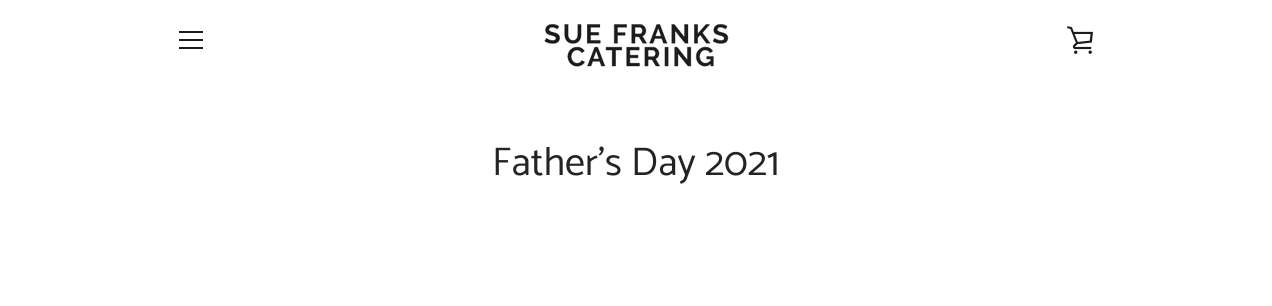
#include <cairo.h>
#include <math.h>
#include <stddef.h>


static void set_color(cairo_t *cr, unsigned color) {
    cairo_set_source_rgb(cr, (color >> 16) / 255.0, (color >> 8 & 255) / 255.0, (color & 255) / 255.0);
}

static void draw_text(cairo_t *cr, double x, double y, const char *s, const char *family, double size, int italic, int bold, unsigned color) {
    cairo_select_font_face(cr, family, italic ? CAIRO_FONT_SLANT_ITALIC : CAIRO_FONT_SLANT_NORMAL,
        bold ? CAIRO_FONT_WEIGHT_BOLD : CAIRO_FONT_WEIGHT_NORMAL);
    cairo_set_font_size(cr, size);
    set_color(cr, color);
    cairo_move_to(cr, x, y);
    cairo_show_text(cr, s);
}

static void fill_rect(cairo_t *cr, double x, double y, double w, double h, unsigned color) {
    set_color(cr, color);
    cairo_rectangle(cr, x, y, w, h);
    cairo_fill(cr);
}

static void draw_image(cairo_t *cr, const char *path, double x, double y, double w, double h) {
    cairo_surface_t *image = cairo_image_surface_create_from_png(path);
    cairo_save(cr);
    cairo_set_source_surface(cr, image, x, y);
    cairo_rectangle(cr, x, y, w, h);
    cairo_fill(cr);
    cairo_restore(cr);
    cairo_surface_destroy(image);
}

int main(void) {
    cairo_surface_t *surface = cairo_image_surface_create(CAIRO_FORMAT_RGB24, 1272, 306);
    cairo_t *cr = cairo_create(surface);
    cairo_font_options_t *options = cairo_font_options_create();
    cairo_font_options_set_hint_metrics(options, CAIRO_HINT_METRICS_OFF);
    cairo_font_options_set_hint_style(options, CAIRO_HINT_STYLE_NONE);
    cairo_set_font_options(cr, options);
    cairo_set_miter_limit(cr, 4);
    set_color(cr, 0xFFFFFF);
    cairo_paint(cr);
    fill_rect(cr, 179, 31, 24, 2, 0x1B1B1B);
    fill_rect(cr, 179, 39, 24, 2, 0x1B1B1B);
    fill_rect(cr, 179, 47, 24, 2, 0x1B1B1B);
    draw_image(cr, "assets/img1.png", 544, 23, 185, 44);
    draw_image(cr, "assets/img2.png", 1067, 26, 26, 28);
    draw_text(cr, 492, 175, "Father's Day 2021", "Catamaran", 40, 0, 0, 0x242424);
    cairo_surface_write_to_png(surface, "output.png");
    cairo_font_options_destroy(options);
    cairo_destroy(cr);
    cairo_surface_destroy(surface);
    return 0;
}
